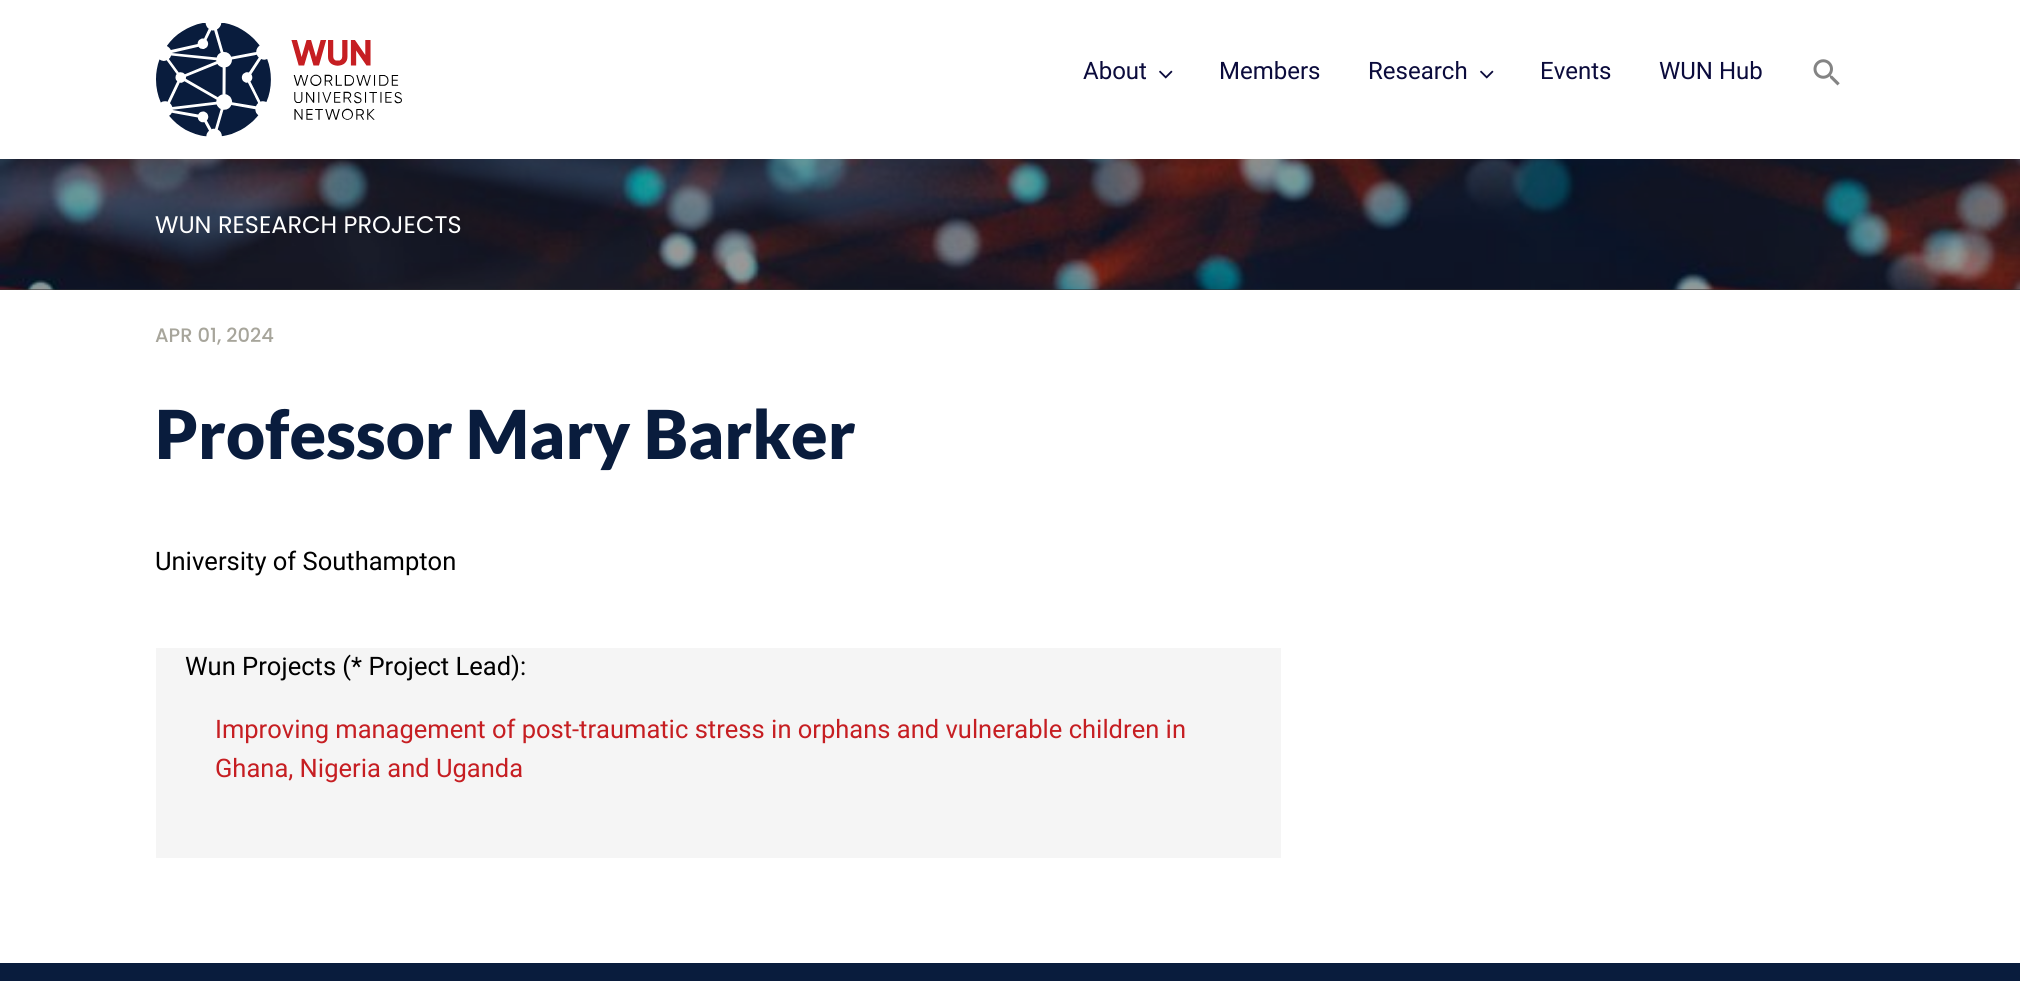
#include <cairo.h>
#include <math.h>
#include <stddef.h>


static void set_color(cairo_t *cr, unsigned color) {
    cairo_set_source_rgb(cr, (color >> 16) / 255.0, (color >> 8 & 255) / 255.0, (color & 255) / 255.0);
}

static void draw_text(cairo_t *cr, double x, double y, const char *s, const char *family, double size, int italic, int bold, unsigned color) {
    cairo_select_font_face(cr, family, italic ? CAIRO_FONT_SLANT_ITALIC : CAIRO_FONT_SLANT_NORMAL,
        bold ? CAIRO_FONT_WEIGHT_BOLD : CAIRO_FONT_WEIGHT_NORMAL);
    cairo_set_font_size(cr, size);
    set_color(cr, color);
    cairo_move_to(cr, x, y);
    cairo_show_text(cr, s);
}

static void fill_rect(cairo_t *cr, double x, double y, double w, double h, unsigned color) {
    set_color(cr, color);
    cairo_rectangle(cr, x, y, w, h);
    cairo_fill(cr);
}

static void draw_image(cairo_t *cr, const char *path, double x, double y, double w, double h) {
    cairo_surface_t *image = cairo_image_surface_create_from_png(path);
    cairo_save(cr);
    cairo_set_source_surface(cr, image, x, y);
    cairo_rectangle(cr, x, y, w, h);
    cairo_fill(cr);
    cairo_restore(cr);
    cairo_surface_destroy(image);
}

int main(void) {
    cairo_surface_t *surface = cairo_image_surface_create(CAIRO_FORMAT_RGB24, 2020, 981);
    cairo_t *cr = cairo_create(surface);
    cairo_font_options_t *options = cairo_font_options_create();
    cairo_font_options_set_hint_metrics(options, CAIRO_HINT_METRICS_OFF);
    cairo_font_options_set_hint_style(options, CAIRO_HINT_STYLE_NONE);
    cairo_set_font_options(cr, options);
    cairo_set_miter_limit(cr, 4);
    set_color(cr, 0xFFFFFF);
    cairo_paint(cr);
    draw_image(cr, "assets/img1.png", 156, 23, 246, 114);
    draw_text(cr, 1083, 79, "About", "Heebo", 24, 0, 0, 0x0B0B3C);
    draw_image(cr, "assets/img2.png", 1159, 70, 14, 9);
    draw_text(cr, 1219, 79, "Members", "Heebo", 24, 0, 0, 0x0B0B3C);
    draw_text(cr, 1368, 79, "Research", "Heebo", 24, 0, 0, 0x0B0B3C);
    draw_image(cr, "assets/img2.png", 1480, 70, 14, 9);
    draw_text(cr, 1540, 79, "Events", "Heebo", 24, 0, 0, 0x0B0B3C);
    draw_text(cr, 1659, 79, "WUN Hub", "Heebo", 24, 0, 0, 0x0B0B3C);
    draw_image(cr, "assets/img3.png", 1813, 59, 27, 27);
    fill_rect(cr, 0, 289, 2020, 1, 0x2E2E2E);
    draw_image(cr, "assets/img4.png", 0, 159, 2020, 131);
    draw_text(cr, 155, 233, "WUN RESEARCH PROJECTS", "Poppins", 24, 0, 0, 0xFFFFFF);
    draw_text(cr, 155, 342, "APR 01, 2024", "Poppins Medium", 19.5, 0, 0, 0xA7A59B);
    draw_text(cr, 155, 459, "Professor Mary Barker", "Lato Black", 67.5, 0, 0, 0x091C3D);
    draw_text(cr, 155, 570, "University of Southampton", "Heebo", 25.5, 0, 0, 0x000000);
    fill_rect(cr, 156, 648, 1125, 210, 0xF5F5F5);
    draw_text(cr, 185, 675, "Wun Projects (* Project Lead):", "Heebo", 25.5, 0, 0, 0x000000);
    draw_text(cr, 215, 738, "Improving management of post-traumatic stress in orphans and vulnerable children in", "Heebo", 25.5, 0, 0, 0xC61E22);
    draw_text(cr, 215, 777, "Ghana, Nigeria and Uganda", "Heebo", 25.5, 0, 0, 0xC61E22);
    fill_rect(cr, 0, 963, 2020, 18, 0x091C3D);
    cairo_surface_write_to_png(surface, "output.png");
    cairo_font_options_destroy(options);
    cairo_destroy(cr);
    cairo_surface_destroy(surface);
    return 0;
}
